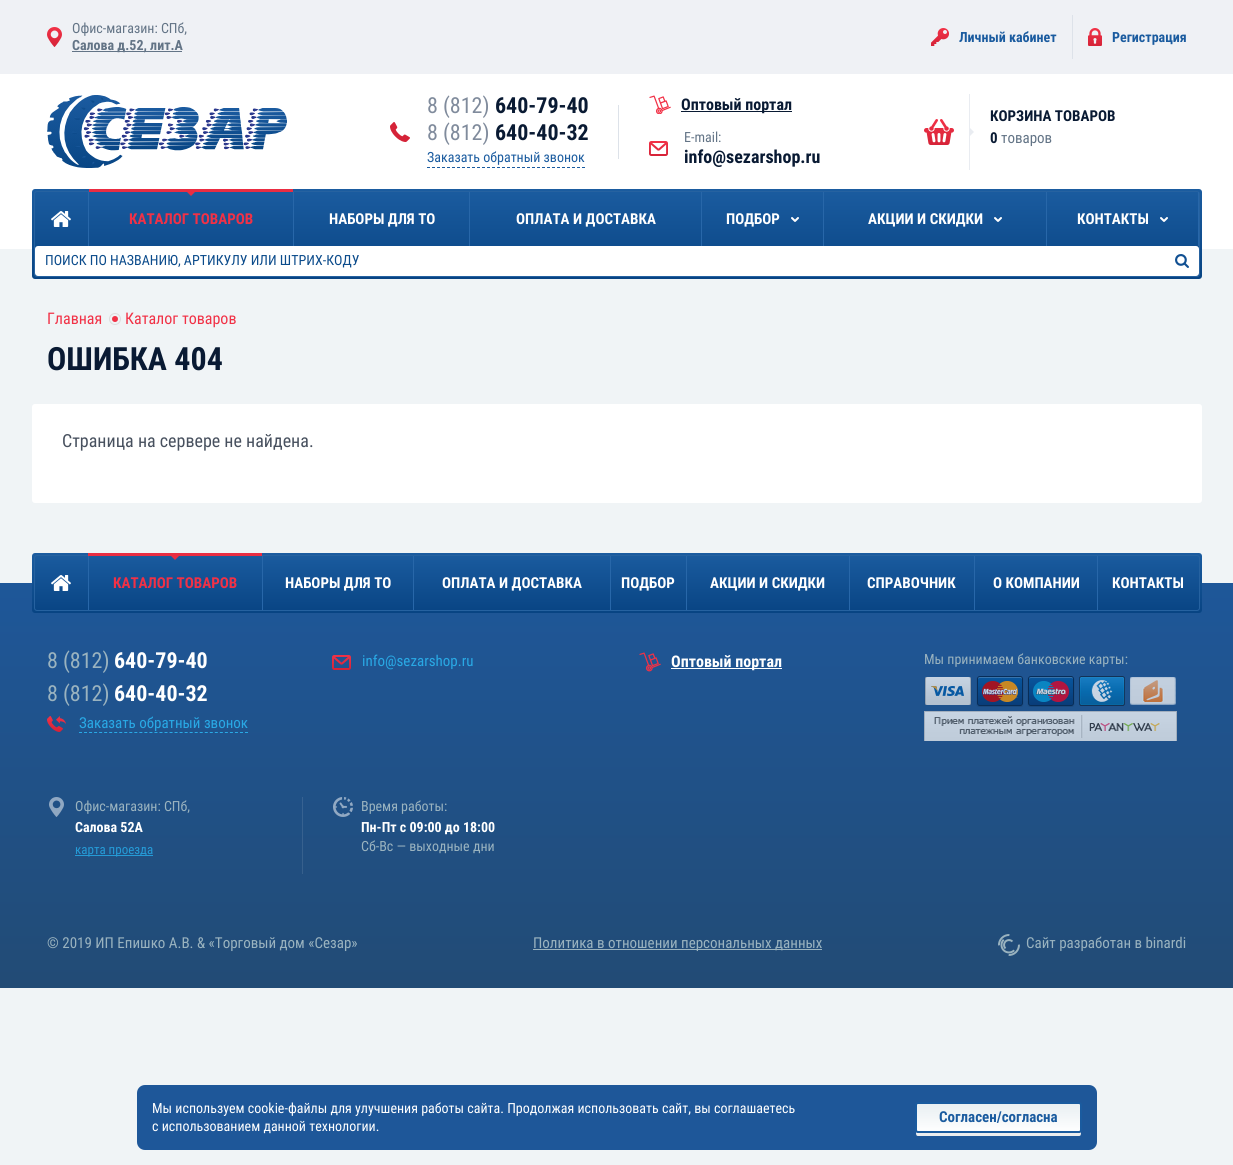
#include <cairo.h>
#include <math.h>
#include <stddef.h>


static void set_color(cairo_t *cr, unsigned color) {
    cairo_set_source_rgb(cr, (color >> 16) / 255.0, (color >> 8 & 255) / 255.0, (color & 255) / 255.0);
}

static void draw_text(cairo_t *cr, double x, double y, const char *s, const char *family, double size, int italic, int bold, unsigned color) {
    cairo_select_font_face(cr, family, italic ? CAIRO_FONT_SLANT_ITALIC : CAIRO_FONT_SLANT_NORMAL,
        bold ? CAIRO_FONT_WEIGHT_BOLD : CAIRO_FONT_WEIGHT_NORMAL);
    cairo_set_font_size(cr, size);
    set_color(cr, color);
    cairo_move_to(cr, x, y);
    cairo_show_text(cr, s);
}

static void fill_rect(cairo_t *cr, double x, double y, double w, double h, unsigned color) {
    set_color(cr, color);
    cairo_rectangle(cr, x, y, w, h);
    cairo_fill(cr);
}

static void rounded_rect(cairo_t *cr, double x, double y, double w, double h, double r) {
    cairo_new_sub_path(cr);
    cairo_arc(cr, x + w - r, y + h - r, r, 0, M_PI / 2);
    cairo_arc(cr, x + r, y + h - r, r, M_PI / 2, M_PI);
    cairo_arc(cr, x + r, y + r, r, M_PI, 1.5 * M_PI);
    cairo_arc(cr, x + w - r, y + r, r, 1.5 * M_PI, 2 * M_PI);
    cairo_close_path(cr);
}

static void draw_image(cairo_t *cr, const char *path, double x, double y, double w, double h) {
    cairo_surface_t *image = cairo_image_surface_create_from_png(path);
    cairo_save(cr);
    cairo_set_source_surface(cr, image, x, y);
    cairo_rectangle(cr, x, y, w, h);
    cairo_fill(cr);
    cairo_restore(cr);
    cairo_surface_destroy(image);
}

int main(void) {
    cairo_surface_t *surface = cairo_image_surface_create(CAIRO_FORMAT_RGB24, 1233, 1165);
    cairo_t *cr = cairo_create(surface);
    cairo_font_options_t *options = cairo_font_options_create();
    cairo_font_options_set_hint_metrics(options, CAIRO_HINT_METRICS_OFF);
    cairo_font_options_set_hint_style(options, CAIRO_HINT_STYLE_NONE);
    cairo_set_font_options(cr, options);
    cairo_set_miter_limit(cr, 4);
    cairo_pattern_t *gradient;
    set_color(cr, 0xF0F4F6);
    cairo_paint(cr);
    fill_rect(cr, 0, 74, 1233, 175, 0xFFFFFF);
    fill_rect(cr, 0, 0, 1233, 74, 0xEFF1F5);
    draw_image(cr, "assets/img1.png", 47, 27, 15, 20);
    draw_text(cr, 72, 33, "Офис-магазин: СПб,", "Roboto Condensed", 14, 0, 0, 0x637486);
    fill_rect(cr, 72, 51, 110, 1, 0x637486);
    draw_text(cr, 72, 50, "Салова д.52, лит.А", "Roboto Condensed", 14, 0, 1, 0x637486);
    draw_image(cr, "assets/img2.png", 931, 28, 18, 18);
    draw_text(cr, 959, 42, "Личный кабинет", "Roboto Condensed", 14, 0, 1, 0x1A5B9F);
    fill_rect(cr, 1072, 15, 1, 44, 0xDDE2E9);
    draw_image(cr, "assets/img3.png", 1088, 28, 14, 18);
    draw_text(cr, 1112, 42, "Регистрация", "Roboto Condensed", 14, 0, 1, 0x1A5B9F);
    draw_image(cr, "assets/img4.png", 47, 95, 240, 73);
    draw_image(cr, "assets/img5.png", 390, 122, 20, 20);
    draw_text(cr, 427, 113, "8 (812)", "Roboto Condensed", 22, 0, 0, 0x808B9C);
    draw_text(cr, 495, 113, "640-79-40", "Roboto Condensed", 22, 0, 1, 0x091A33);
    draw_text(cr, 427, 140, "8 (812)", "Roboto Condensed", 22, 0, 0, 0x808B9C);
    draw_text(cr, 495, 140, "640-40-32", "Roboto Condensed", 22, 0, 1, 0x091A33);
    cairo_new_path(cr);
    cairo_move_to(cr, 427, 167.5);
    cairo_line_to(cr, 585, 167.5);
    set_color(cr, 0x1A5B9F);
    cairo_set_line_width(cr, 1);
    cairo_set_dash(cr, (double[]){3, 2}, 2, 0);
    cairo_stroke(cr);
    draw_text(cr, 427, 162, "Заказать обратный звонок", "Roboto Condensed", 14, 0, 0, 0x1A5B9F);
    fill_rect(cr, 618, 105, 1, 54, 0xDDE2E9);
    draw_image(cr, "assets/img6.png", 649, 95, 22, 19);
    fill_rect(cr, 681, 111, 111, 1, 0x091A33);
    draw_text(cr, 681, 110, "Оптовый портал", "Roboto Condensed", 16, 0, 1, 0x091A33);
    draw_image(cr, "assets/img7.png", 649, 141, 19, 15);
    draw_text(cr, 684, 142, "E-mail:", "Roboto Condensed", 14, 0, 0, 0x637486);
    draw_text(cr, 684, 163, "info@sezarshop.ru", "Roboto Condensed", 18, 0, 1, 0x091A33);
    fill_rect(cr, 969, 94, 1, 76, 0xE9ECF1);
    draw_text(cr, 990, 121, "КОРЗИНА ТОВАРОВ", "Roboto Condensed", 15, 0, 1, 0x091A33);
    draw_image(cr, "assets/img8.png", 924, 119, 30, 26);
    set_color(cr, 0xE9ECF1);
    cairo_new_path(cr);
    cairo_move_to(cr, 969, 137);
    cairo_line_to(cr, 969, 127);
    cairo_line_to(cr, 974, 132);
    cairo_close_path(cr);
    cairo_fill(cr);
    draw_text(cr, 990, 143, "0", "Roboto Condensed", 15, 0, 1, 0x091A33);
    draw_text(cr, 1001, 143, "товаров", "Roboto Condensed", 15, 0, 0, 0x637486);
    gradient = cairo_pattern_create_linear(617, 189, 617, 279);
    cairo_pattern_add_color_stop_rgba(gradient, 0, 0.106, 0.361, 0.627, 1);
    cairo_pattern_add_color_stop_rgba(gradient, 1, 0.031, 0.267, 0.514, 1);
    cairo_set_source(cr, gradient);
    cairo_pattern_destroy(gradient);
    rounded_rect(cr, 32, 189, 1170, 90, 3);
    cairo_fill(cr);
    rounded_rect(cr, 34.5, 191.5, 1165, 85, 2.5);
    set_color(cr, 0x2662A0);
    cairo_set_dash(cr, NULL, 0, 0);
    cairo_stroke(cr);
    fill_rect(cr, 88, 192, 1, 54, 0x2867A9);
    draw_image(cr, "assets/img9.png", 51, 211, 20, 16);
    fill_rect(cr, 293, 192, 1, 54, 0x2867A9);
    fill_rect(cr, 89, 189, 204, 3, 0xEA2D42);
    cairo_new_path(cr);
    cairo_move_to(cr, 187, 192);
    cairo_line_to(cr, 195, 192);
    cairo_line_to(cr, 191, 196);
    cairo_close_path(cr);
    cairo_fill(cr);
    draw_text(cr, 129, 224, "КАТАЛОГ ТОВАРОВ", "Roboto Condensed", 15, 0, 1, 0xF13146);
    fill_rect(cr, 469, 192, 1, 54, 0x2867A9);
    draw_text(cr, 329, 224, "НАБОРЫ ДЛЯ ТО", "Roboto Condensed", 15, 0, 1, 0xFFFFFF);
    fill_rect(cr, 701, 192, 1, 54, 0x2867A9);
    draw_text(cr, 516, 224, "ОПЛАТА И ДОСТАВКА", "Roboto Condensed", 15, 0, 1, 0xFFFFFF);
    fill_rect(cr, 823, 192, 1, 54, 0x2867A9);
    draw_text(cr, 726, 224, "ПОДБОР", "Roboto Condensed", 15, 0, 1, 0xFFFFFF);
    draw_image(cr, "assets/img10.png", 791, 217, 8, 5);
    fill_rect(cr, 1046, 192, 1, 54, 0x2867A9);
    draw_text(cr, 868, 224, "АКЦИИ И СКИДКИ", "Roboto Condensed", 15, 0, 1, 0xFFFFFF);
    draw_image(cr, "assets/img10.png", 994, 217, 8, 5);
    fill_rect(cr, 1198, 192, 1, 54, 0x2867A9);
    draw_text(cr, 1077, 224, "КОНТАКТЫ", "Roboto Condensed", 15, 0, 1, 0xFFFFFF);
    draw_image(cr, "assets/img10.png", 1160, 217, 8, 5);
    rounded_rect(cr, 35, 246, 1164, 30, 3);
    cairo_fill(cr);
    draw_text(cr, 45, 265, "ПОИСК ПО НАЗВАНИЮ, АРТИКУЛУ ИЛИ ШТРИХ-КОДУ", "Roboto Condensed", 14, 0, 0, 0x0B4B8B);
    draw_image(cr, "assets/img11.png", 1175, 254, 14, 14);
    draw_text(cr, 47, 324, "Главная", "Roboto Condensed", 16, 0, 0, 0xF13146);
    cairo_new_path(cr);
    cairo_arc(cr, 115, 319, 5.5, 0, 2 * M_PI);
    set_color(cr, 0xDDDCDD);
    cairo_stroke(cr);
    set_color(cr, 0xF13146);
    cairo_arc(cr, 115, 319, 3, 0, 2 * M_PI);
    cairo_fill(cr);
    draw_text(cr, 125, 324, "Каталог товаров", "Roboto Condensed", 16, 0, 0, 0xF13146);
    draw_text(cr, 47, 370, "ОШИБКА 404", "Roboto Condensed", 32, 0, 1, 0x091A33);
    set_color(cr, 0xFFFFFF);
    rounded_rect(cr, 32, 404, 1170, 99, 3);
    cairo_fill(cr);
    draw_text(cr, 62, 447, "Страница на сервере не найдена.", "Roboto Condensed", 18, 0, 0, 0x47505E);
    gradient = cairo_pattern_create_linear(617, 583, 617, 988);
    cairo_pattern_add_color_stop_rgba(gradient, 0, 0.118, 0.341, 0.6, 1);
    cairo_pattern_add_color_stop_rgba(gradient, 1, 0.133, 0.294, 0.459, 1);
    cairo_set_source(cr, gradient);
    cairo_pattern_destroy(gradient);
    cairo_rectangle(cr, 0, 583, 1233, 405);
    cairo_fill(cr);
    gradient = cairo_pattern_create_linear(617, 583, 617, 988);
    cairo_pattern_add_color_stop_rgba(gradient, 0, 0.208, 0.408, 0.639, 1);
    cairo_pattern_add_color_stop_rgba(gradient, 1, 0.22, 0.365, 0.514, 1);
    cairo_set_source(cr, gradient);
    cairo_pattern_destroy(gradient);
    cairo_rectangle(cr, 302, 797, 1, 77);
    cairo_fill(cr);
    gradient = cairo_pattern_create_linear(617, 553, 617, 613);
    cairo_pattern_add_color_stop_rgba(gradient, 0, 0.106, 0.361, 0.627, 1);
    cairo_pattern_add_color_stop_rgba(gradient, 1, 0.031, 0.267, 0.514, 1);
    cairo_set_source(cr, gradient);
    cairo_pattern_destroy(gradient);
    rounded_rect(cr, 32, 553, 1170, 60, 3);
    cairo_fill(cr);
    rounded_rect(cr, 34.5, 555.5, 1165, 55, 2.5);
    set_color(cr, 0x2662A0);
    cairo_stroke(cr);
    fill_rect(cr, 88, 556, 1, 54, 0x2867A9);
    draw_image(cr, "assets/img12.png", 51, 575, 20, 16);
    fill_rect(cr, 262, 556, 1, 54, 0x2867A9);
    fill_rect(cr, 88, 553, 174, 3, 0xEA2D42);
    cairo_new_path(cr);
    cairo_move_to(cr, 171, 556);
    cairo_line_to(cr, 179, 556);
    cairo_line_to(cr, 175, 560);
    cairo_close_path(cr);
    cairo_fill(cr);
    draw_text(cr, 113, 588, "КАТАЛОГ ТОВАРОВ", "Roboto Condensed", 15, 0, 1, 0xF13146);
    fill_rect(cr, 413, 556, 1, 54, 0x2867A9);
    draw_text(cr, 285, 588, "НАБОРЫ ДЛЯ ТО", "Roboto Condensed", 15, 0, 1, 0xFFFFFF);
    fill_rect(cr, 610, 556, 1, 54, 0x2867A9);
    draw_text(cr, 442, 588, "ОПЛАТА И ДОСТАВКА", "Roboto Condensed", 15, 0, 1, 0xFFFFFF);
    fill_rect(cr, 686, 556, 1, 54, 0x2867A9);
    draw_text(cr, 621, 588, "ПОДБОР", "Roboto Condensed", 15, 0, 1, 0xFFFFFF);
    fill_rect(cr, 849, 556, 1, 54, 0x2867A9);
    draw_text(cr, 710, 588, "АКЦИИ И СКИДКИ", "Roboto Condensed", 15, 0, 1, 0xFFFFFF);
    fill_rect(cr, 974, 556, 1, 54, 0x2867A9);
    draw_text(cr, 867, 588, "СПРАВОЧНИК", "Roboto Condensed", 15, 0, 1, 0xFFFFFF);
    fill_rect(cr, 1097, 556, 1, 54, 0x2867A9);
    draw_text(cr, 993, 588, "О КОМПАНИИ", "Roboto Condensed", 15, 0, 1, 0xFFFFFF);
    draw_text(cr, 1112, 588, "КОНТАКТЫ", "Roboto Condensed", 15, 0, 1, 0xFFFFFF);
    draw_text(cr, 47, 668, "8 (812)", "Roboto Condensed", 22, 0, 0, 0x9AB3BF);
    draw_text(cr, 114, 668, "640-79-40", "Roboto Condensed", 22, 0, 1, 0xFFFFFF);
    draw_text(cr, 47, 701, "8 (812)", "Roboto Condensed", 22, 0, 0, 0x9AB3BF);
    draw_text(cr, 114, 701, "640-40-32", "Roboto Condensed", 22, 0, 1, 0xFFFFFF);
    draw_image(cr, "assets/img13.png", 47, 716, 19, 16);
    draw_text(cr, 79, 728, "Заказать обратный звонок", "Roboto Condensed", 15, 0, 0, 0x29A9E5);
    cairo_new_path(cr);
    cairo_move_to(cr, 79, 732.5);
    cairo_line_to(cr, 248, 732.5);
    cairo_set_dash(cr, (double[]){3, 2.03}, 2, 0);
    cairo_stroke(cr);
    draw_image(cr, "assets/img14.png", 332, 655, 19, 15);
    draw_text(cr, 362, 666, "info@sezarshop.ru", "Roboto Condensed", 15, 0, 0, 0x29A9E5);
    draw_image(cr, "assets/img15.png", 639, 652, 22, 20);
    fill_rect(cr, 671, 668, 111, 1, 0xFFFFFF);
    draw_text(cr, 671, 667, "Оптовый портал", "Roboto Condensed", 16, 0, 1, 0xFFFFFF);
    draw_text(cr, 924, 664, "Мы принимаем банковские карты:", "Roboto Condensed", 14, 0, 0, 0x9AB3BF);
    draw_image(cr, "assets/img16.png", 924, 677, 48, 28);
    draw_image(cr, "assets/img17.png", 976, 676, 48, 31);
    draw_image(cr, "assets/img18.png", 1027, 676, 48, 31);
    draw_image(cr, "assets/img19.png", 1079, 676, 46, 30);
    draw_image(cr, "assets/img20.png", 1130, 677, 46, 28);
    draw_image(cr, "assets/img21.png", 924, 711, 253, 30);
    draw_image(cr, "assets/img22.png", 49, 797, 15, 20);
    draw_text(cr, 75, 811, "Офис-магазин: СПб,", "Roboto Condensed", 14, 0, 0, 0x9AB3BF);
    draw_text(cr, 75, 832, "Салова 52А", "Roboto Condensed", 14, 0, 1, 0xFFFFFF);
    fill_rect(cr, 75, 855, 78, 1, 0x259BD7);
    draw_text(cr, 75, 854, "карта проезда", "Roboto Condensed", 13, 0, 0, 0x259BD7);
    draw_image(cr, "assets/img23.png", 333, 797, 20, 20);
    draw_text(cr, 361, 811, "Время работы:", "Roboto Condensed", 14, 0, 0, 0x9AB3BF);
    draw_text(cr, 361, 832, "Пн-Пт с 09:00 до 18:00", "Roboto Condensed", 14, 0, 1, 0xFFFFFF);
    draw_text(cr, 361, 851, "Сб-Вс — выходные дни", "Roboto Condensed", 14, 0, 0, 0x9AB3BF);
    draw_text(cr, 47, 948, "© 2019 ИП Епишко А.В. & «Торговый дом «Сезар»", "Roboto Condensed", 15, 0, 0, 0x9AB3BF);
    fill_rect(cr, 533, 949, 289, 1, 0x9AB3BF);
    draw_text(cr, 533, 948, "Политика в отношении персональных данных", "Roboto Condensed", 15, 0, 0, 0x9AB3BF);
    draw_image(cr, "assets/img24.png", 998, 934, 22, 22);
    draw_text(cr, 1026, 948, "Сайт разработан в binardi", "Roboto Condensed", 15, 0, 0, 0x9AB3BF);
    set_color(cr, 0x1E5799);
    rounded_rect(cr, 137, 1085, 960, 65, 8);
    cairo_fill(cr);
    draw_text(cr, 152, 1113, "Мы используем cookie-файлы для улучшения работы сайта. Продолжая использовать сайт, вы соглашаетесь", "Roboto Condensed", 14, 0, 0, 0xFFFFFF);
    draw_text(cr, 152, 1131, "с использованием данной технологии.", "Roboto Condensed", 14, 0, 0, 0xFFFFFF);
    set_color(cr, 0xEBEDEF);
    cairo_new_path(cr);
    cairo_move_to(cr, 916, 1132);
    cairo_curve_to(cr, 916, 1134, 916, 1136, 918, 1136);
    cairo_line_to(cr, 1079, 1136);
    cairo_curve_to(cr, 1081, 1136, 1081, 1134, 1081, 1132);
    cairo_line_to(cr, 1079, 1133);
    cairo_line_to(cr, 945, 1133);
    cairo_line_to(cr, 918, 1133);
    cairo_close_path(cr);
    cairo_fill(cr);
    gradient = cairo_pattern_create_linear(999, 1102, 999, 1133);
    cairo_pattern_add_color_stop_rgba(gradient, 0, 0.906, 0.933, 0.945, 1);
    cairo_pattern_add_color_stop_rgba(gradient, 1, 1, 1, 1, 1);
    cairo_set_source(cr, gradient);
    cairo_pattern_destroy(gradient);
    rounded_rect(cr, 916, 1103, 165, 29, 2);
    cairo_fill_preserve(cr);
    set_color(cr, 0x1A5B9F);
    cairo_set_line_width(cr, 2);
    cairo_set_dash(cr, NULL, 0, 0);
    cairo_stroke(cr);
    draw_text(cr, 939, 1122, "Согласен/согласна", "Roboto Condensed", 15, 0, 1, 0x1A5B9F);
    cairo_surface_write_to_png(surface, "output.png");
    cairo_font_options_destroy(options);
    cairo_destroy(cr);
    cairo_surface_destroy(surface);
    return 0;
}
